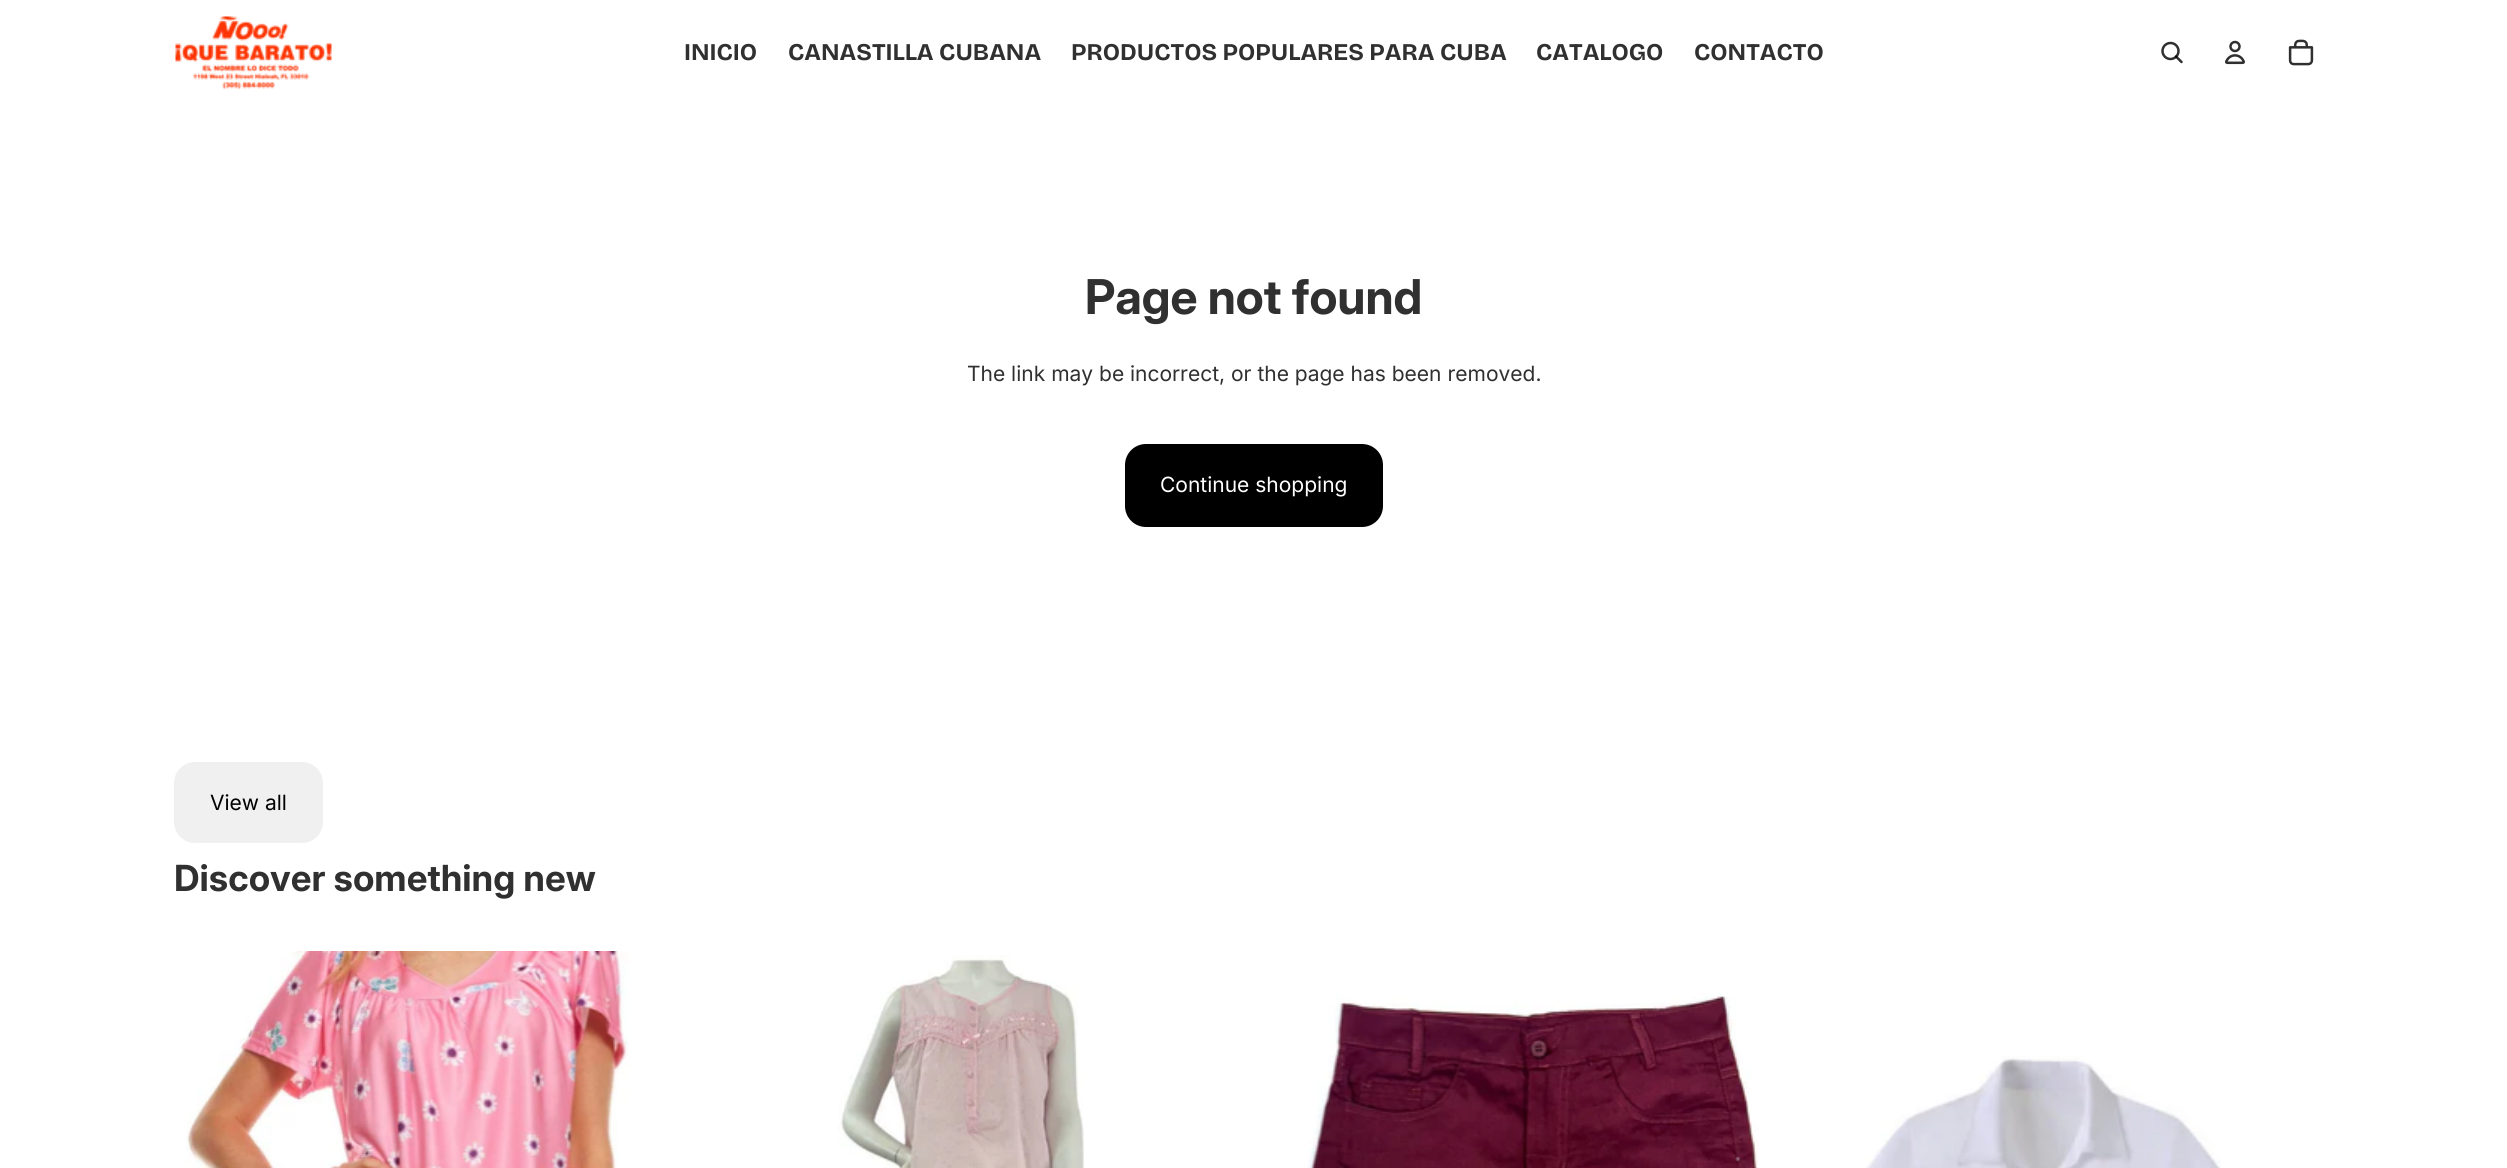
#include <cairo.h>
#include <math.h>
#include <stddef.h>


static void set_color(cairo_t *cr, unsigned color) {
    cairo_set_source_rgb(cr, (color >> 16) / 255.0, (color >> 8 & 255) / 255.0, (color & 255) / 255.0);
}

static void draw_text(cairo_t *cr, double x, double y, const char *s, const char *family, double size, int italic, int bold, unsigned color) {
    cairo_select_font_face(cr, family, italic ? CAIRO_FONT_SLANT_ITALIC : CAIRO_FONT_SLANT_NORMAL,
        bold ? CAIRO_FONT_WEIGHT_BOLD : CAIRO_FONT_WEIGHT_NORMAL);
    cairo_set_font_size(cr, size);
    set_color(cr, color);
    cairo_move_to(cr, x, y);
    cairo_show_text(cr, s);
}

static void rounded_rect(cairo_t *cr, double x, double y, double w, double h, double r) {
    cairo_new_sub_path(cr);
    cairo_arc(cr, x + w - r, y + h - r, r, 0, M_PI / 2);
    cairo_arc(cr, x + r, y + h - r, r, M_PI / 2, M_PI);
    cairo_arc(cr, x + r, y + r, r, M_PI, 1.5 * M_PI);
    cairo_arc(cr, x + w - r, y + r, r, 1.5 * M_PI, 2 * M_PI);
    cairo_close_path(cr);
}

static void draw_image(cairo_t *cr, const char *path, double x, double y, double w, double h) {
    cairo_surface_t *image = cairo_image_surface_create_from_png(path);
    cairo_save(cr);
    cairo_set_source_surface(cr, image, x, y);
    cairo_rectangle(cr, x, y, w, h);
    cairo_fill(cr);
    cairo_restore(cr);
    cairo_surface_destroy(image);
}

int main(void) {
    cairo_surface_t *surface = cairo_image_surface_create(CAIRO_FORMAT_RGB24, 2507, 1168);
    cairo_t *cr = cairo_create(surface);
    cairo_font_options_t *options = cairo_font_options_create();
    cairo_font_options_set_hint_metrics(options, CAIRO_HINT_METRICS_OFF);
    cairo_font_options_set_hint_style(options, CAIRO_HINT_STYLE_NONE);
    cairo_set_font_options(cr, options);
    cairo_set_miter_limit(cr, 4);
    set_color(cr, 0xFFFFFF);
    cairo_paint(cr);
    draw_image(cr, "assets/img1.png", 175, 16, 157, 73);
    draw_text(cr, 684, 60, "INICIO", "Bricolage Grotesque", 24, 0, 1, 0x303030);
    draw_text(cr, 788, 60, "CANASTILLA CUBANA", "Bricolage Grotesque", 24, 0, 1, 0x303030);
    draw_text(cr, 1071, 60, "PRODUCTOS POPULARES PARA CUBA", "Bricolage Grotesque", 24, 0, 1, 0x303030);
    draw_text(cr, 1536, 60, "CATALOGO", "Bricolage Grotesque", 24, 0, 1, 0x303030);
    draw_text(cr, 1694, 60, "CONTACTO", "Bricolage Grotesque", 24, 0, 1, 0x303030);
    cairo_new_path(cr);
    cairo_arc(cr, 2170.5, 51, 8, 0, 2 * M_PI);
    cairo_set_line_width(cr, 2.5);
    cairo_stroke(cr);
    cairo_new_path(cr);
    cairo_move_to(cr, 2176, 56.5);
    cairo_line_to(cr, 2181.5, 62);
    cairo_set_source_rgba(cr, 0, 0, 0, 0.81);
    cairo_set_line_cap(cr, CAIRO_LINE_CAP_ROUND);
    cairo_set_line_join(cr, CAIRO_LINE_JOIN_ROUND);
    cairo_stroke(cr);
    draw_image(cr, "assets/img2.png", 2225, 40, 20, 25);
    draw_image(cr, "assets/img3.png", 2288, 39, 26, 27);
    draw_text(cr, 1085, 314, "Page not found", "Inter", 48, 0, 1, 0x303030);
    draw_text(cr, 967, 381, "The link may be incorrect, or the page has been removed.", "Inter", 21, 0, 0, 0x303030);
    set_color(cr, 0x000000);
    rounded_rect(cr, 1125, 444, 258, 83, 21);
    cairo_fill(cr);
    draw_text(cr, 1160, 492, "Continue shopping", "Inter", 21, 0, 0, 0xFFFFFF);
    set_color(cr, 0xF0F0F0);
    rounded_rect(cr, 174, 762, 149, 81, 21);
    cairo_fill(cr);
    draw_text(cr, 210, 810, "View all", "Inter", 21, 0, 0, 0x000000);
    draw_text(cr, 174, 891, "Discover something new", "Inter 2", 36, 0, 1, 0x303030);
    draw_image(cr, "assets/img4.png", 186, 951, 443, 217);
    draw_image(cr, "assets/img5.png", 838, 955, 246, 213);
    draw_image(cr, "assets/img6.png", 1307, 993, 451, 175);
    draw_image(cr, "assets/img7.png", 1866, 1056, 355, 112);
    cairo_surface_write_to_png(surface, "output.png");
    cairo_font_options_destroy(options);
    cairo_destroy(cr);
    cairo_surface_destroy(surface);
    return 0;
}
